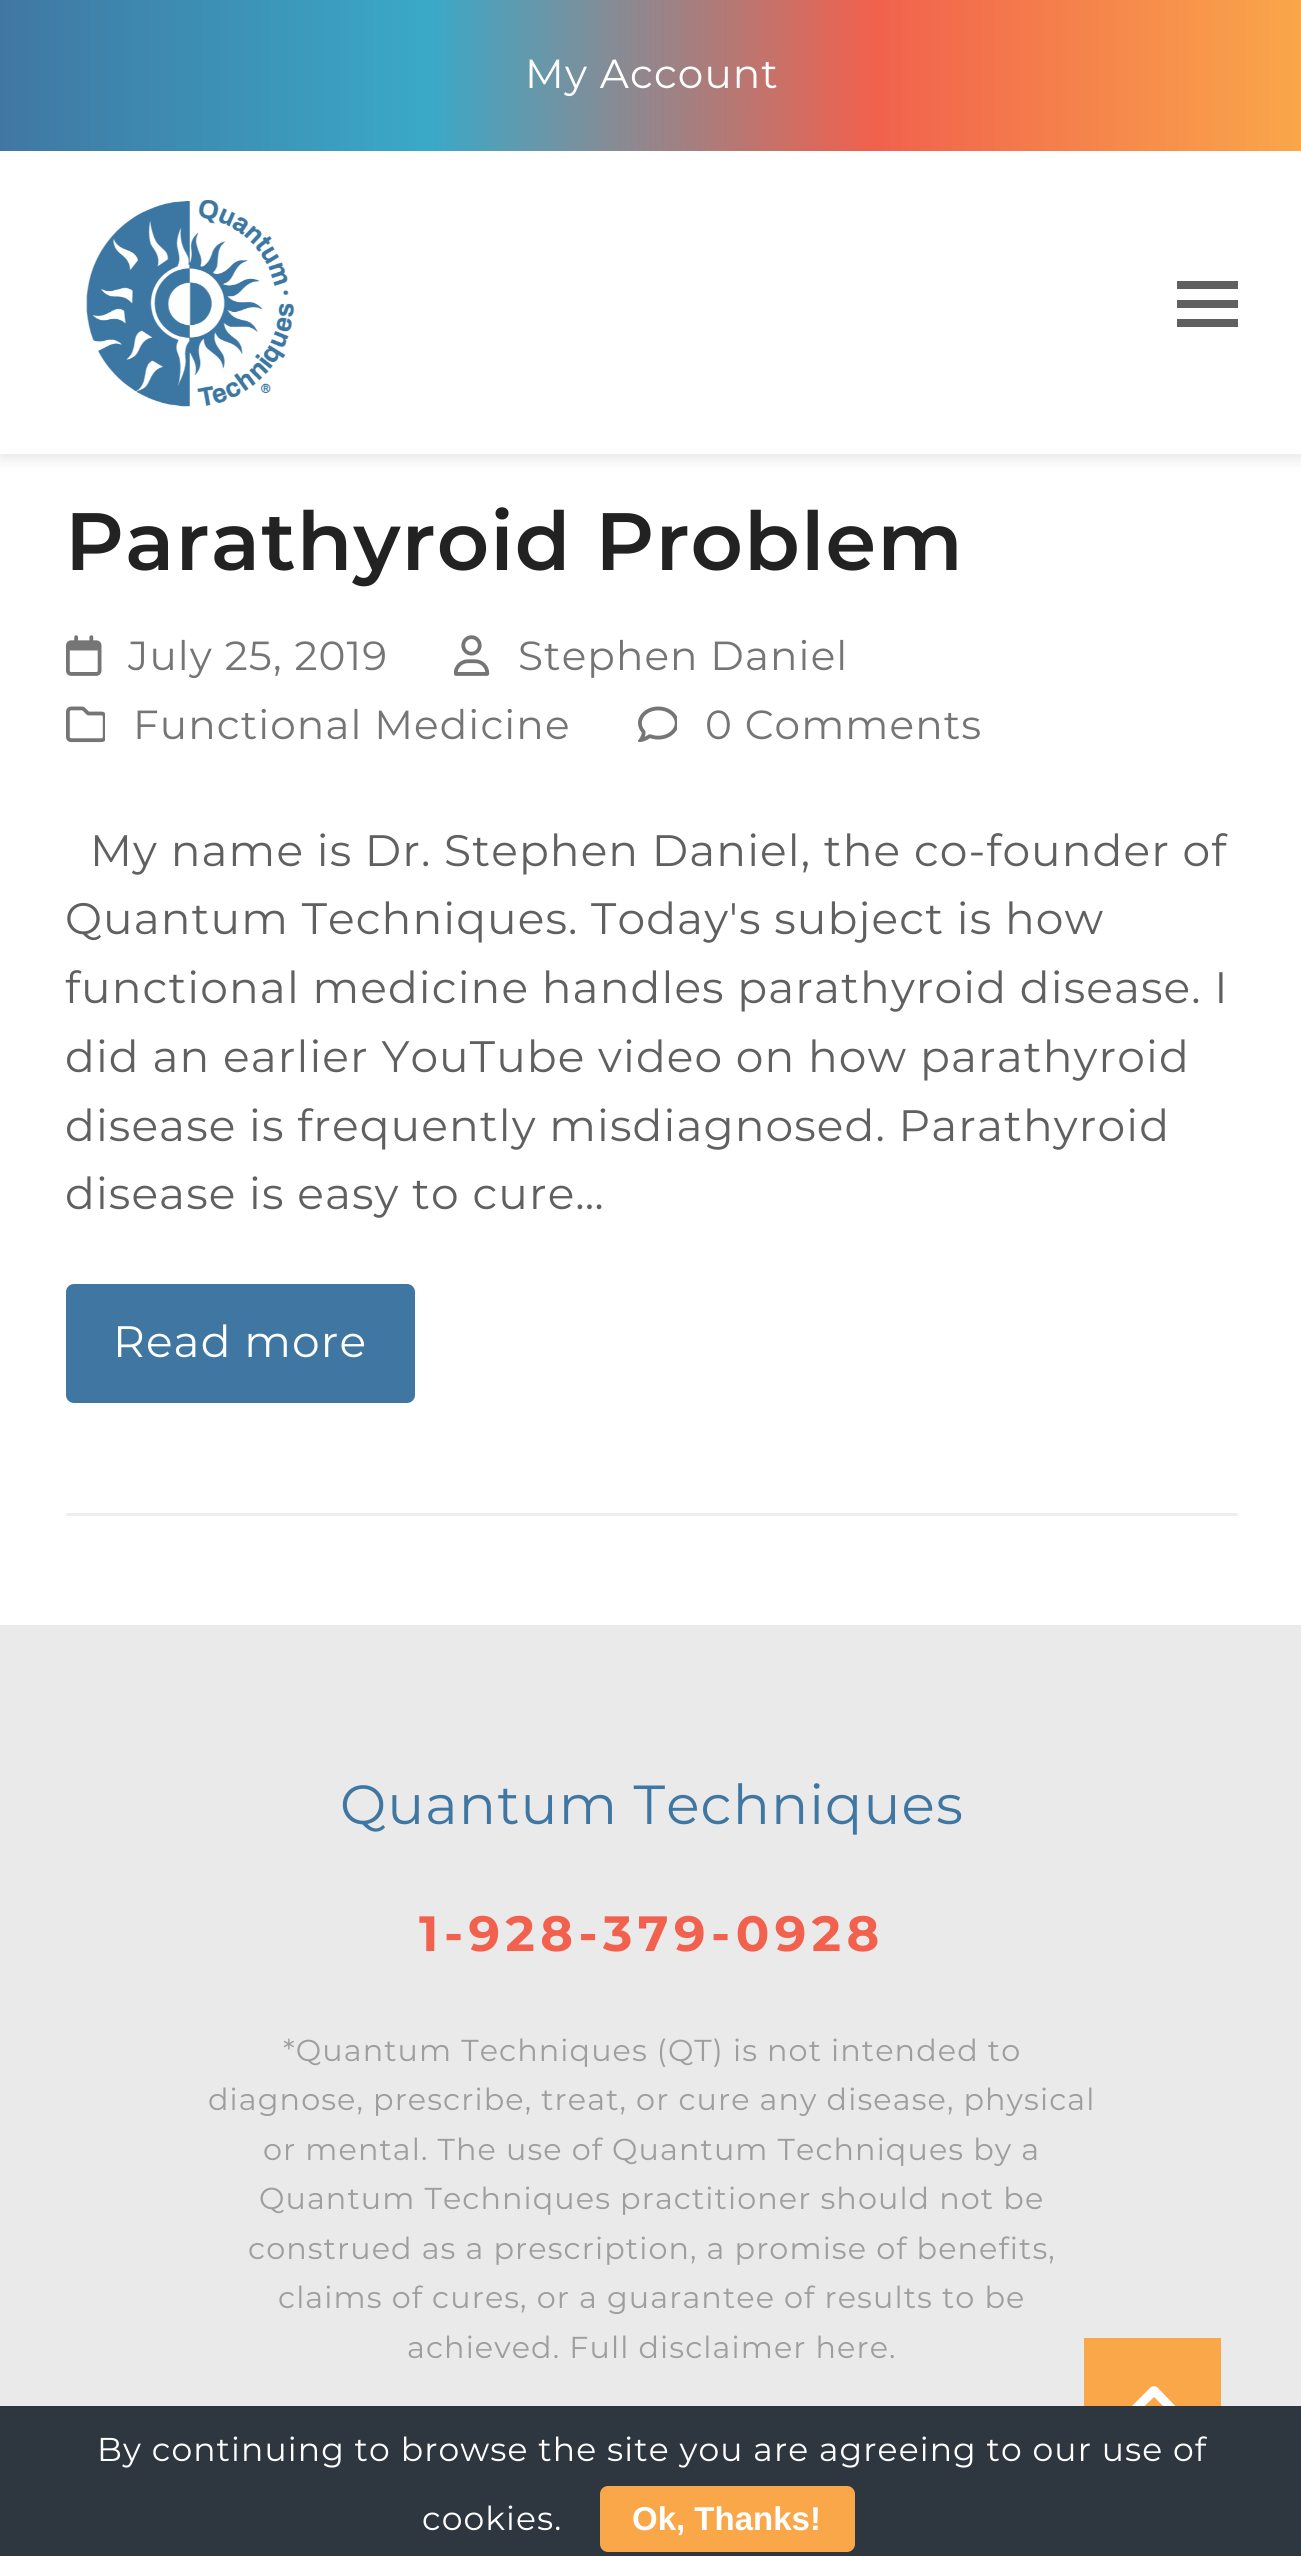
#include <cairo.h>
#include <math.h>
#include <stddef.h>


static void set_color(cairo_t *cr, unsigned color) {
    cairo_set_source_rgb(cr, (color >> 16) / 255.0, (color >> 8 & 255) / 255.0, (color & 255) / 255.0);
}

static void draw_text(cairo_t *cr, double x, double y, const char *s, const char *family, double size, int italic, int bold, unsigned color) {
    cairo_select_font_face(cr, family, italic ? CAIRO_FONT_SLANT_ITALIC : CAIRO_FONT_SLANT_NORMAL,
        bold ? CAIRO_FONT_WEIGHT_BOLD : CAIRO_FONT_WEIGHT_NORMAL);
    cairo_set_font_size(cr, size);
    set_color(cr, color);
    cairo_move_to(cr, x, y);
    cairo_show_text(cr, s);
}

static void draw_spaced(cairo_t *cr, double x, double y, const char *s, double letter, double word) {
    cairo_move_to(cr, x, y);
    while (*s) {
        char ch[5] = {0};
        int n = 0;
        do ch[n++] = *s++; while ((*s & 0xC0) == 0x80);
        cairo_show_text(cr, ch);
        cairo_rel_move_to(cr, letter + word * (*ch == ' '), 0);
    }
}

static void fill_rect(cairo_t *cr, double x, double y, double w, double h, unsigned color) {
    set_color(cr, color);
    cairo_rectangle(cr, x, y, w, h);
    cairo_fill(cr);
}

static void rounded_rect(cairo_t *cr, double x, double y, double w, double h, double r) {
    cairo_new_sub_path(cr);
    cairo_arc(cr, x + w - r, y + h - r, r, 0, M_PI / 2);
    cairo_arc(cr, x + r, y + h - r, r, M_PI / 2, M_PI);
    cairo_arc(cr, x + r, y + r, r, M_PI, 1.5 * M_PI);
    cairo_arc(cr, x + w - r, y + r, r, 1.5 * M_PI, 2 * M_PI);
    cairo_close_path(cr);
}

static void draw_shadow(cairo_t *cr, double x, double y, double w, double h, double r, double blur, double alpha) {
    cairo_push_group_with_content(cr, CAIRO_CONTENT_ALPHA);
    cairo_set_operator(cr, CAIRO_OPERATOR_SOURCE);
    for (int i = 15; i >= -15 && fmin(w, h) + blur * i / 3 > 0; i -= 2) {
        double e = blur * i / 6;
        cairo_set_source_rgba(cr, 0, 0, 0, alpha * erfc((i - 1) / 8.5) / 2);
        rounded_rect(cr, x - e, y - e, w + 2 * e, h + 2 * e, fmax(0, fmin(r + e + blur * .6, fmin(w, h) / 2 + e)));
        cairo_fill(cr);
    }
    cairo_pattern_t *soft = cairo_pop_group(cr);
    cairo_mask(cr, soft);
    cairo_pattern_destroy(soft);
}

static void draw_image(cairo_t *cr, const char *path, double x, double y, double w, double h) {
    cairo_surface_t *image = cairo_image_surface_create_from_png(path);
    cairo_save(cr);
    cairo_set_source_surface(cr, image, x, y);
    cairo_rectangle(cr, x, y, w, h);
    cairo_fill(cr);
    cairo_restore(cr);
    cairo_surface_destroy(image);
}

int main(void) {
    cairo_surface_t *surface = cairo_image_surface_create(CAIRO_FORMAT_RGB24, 1301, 2556);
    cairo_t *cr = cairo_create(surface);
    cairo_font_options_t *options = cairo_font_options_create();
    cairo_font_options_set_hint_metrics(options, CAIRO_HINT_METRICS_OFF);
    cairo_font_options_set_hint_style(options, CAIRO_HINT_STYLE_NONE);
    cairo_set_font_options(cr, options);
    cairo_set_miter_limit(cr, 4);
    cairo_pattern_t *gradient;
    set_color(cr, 0xFFFFFF);
    cairo_paint(cr);
    set_color(cr, 0x000000);
    draw_shadow(cr, 0, 157, 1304, 302, 0, 7, 0.1);
    gradient = cairo_pattern_create_linear(0, 76, 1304, 76);
    cairo_pattern_add_color_stop_rgba(gradient, 0, 0.251, 0.467, 0.635, 1);
    cairo_pattern_add_color_stop_rgba(gradient, 0.33, 0.227, 0.663, 0.784, 1);
    cairo_pattern_add_color_stop_rgba(gradient, 0.67, 0.945, 0.38, 0.302, 1);
    cairo_pattern_add_color_stop_rgba(gradient, 1, 0.98, 0.655, 0.29, 1);
    cairo_set_source(cr, gradient);
    cairo_pattern_destroy(gradient);
    cairo_rectangle(cr, 0, 0, 1301, 151);
    cairo_fill(cr);
    cairo_select_font_face(cr, "Montserrat", CAIRO_FONT_SLANT_NORMAL, CAIRO_FONT_WEIGHT_NORMAL);
    cairo_set_font_size(cr, 40.6);
    set_color(cr, 0xFFFFFF);
    draw_spaced(cr, 525, 88, "My Account", 1.1, 0);
    fill_rect(cr, 0, 151, 1301, 303, 0xFFFFFF);
    draw_image(cr, "assets/img1.png", 86, 200, 208, 207);
    fill_rect(cr, 1177, 300, 61, 8, 0x616061);
    fill_rect(cr, 1177, 281, 61, 8, 0x616061);
    fill_rect(cr, 1177, 319, 61, 8, 0x616061);
    cairo_select_font_face(cr, "Montserrat SemiBold", CAIRO_FONT_SLANT_NORMAL, CAIRO_FONT_WEIGHT_NORMAL);
    cairo_set_font_size(cr, 81.25);
    set_color(cr, 0x222222);
    draw_spaced(cr, 65, 570, "Parathyroid Problem", 1.1, 0);
    draw_image(cr, "assets/img2.png", 66, 635, 36, 41);
    cairo_select_font_face(cr, "Montserrat", CAIRO_FONT_SLANT_NORMAL, CAIRO_FONT_WEIGHT_NORMAL);
    cairo_set_font_size(cr, 40.6);
    set_color(cr, 0x757575);
    draw_spaced(cr, 128, 670, "July 25, 2019", 1.1, 0);
    draw_image(cr, "assets/img3.png", 454, 635, 36, 41);
    draw_spaced(cr, 518, 670, "Stephen Daniel", 1.1, 0);
    draw_image(cr, "assets/img4.png", 66, 706, 39, 37);
    draw_spaced(cr, 133, 739, "Functional Medicine", 1.1, 0);
    draw_image(cr, "assets/img5.png", 638, 706, 39, 37);
    draw_spaced(cr, 705, 739, "0 Comments", 1.1, 0);
    cairo_set_font_size(cr, 44);
    set_color(cr, 0x616061);
    draw_spaced(cr, 90, 866, "My name is Dr. Stephen Daniel, the co-founder of", 1.1, 0);
    draw_spaced(cr, 65, 934, "Quantum Techniques. Today's subject is how", 1.1, 0);
    draw_spaced(cr, 65, 1003, "functional medicine handles parathyroid disease. I", 1.1, 0);
    draw_spaced(cr, 65, 1072, "did an earlier YouTube video on how parathyroid", 1.1, 0);
    draw_spaced(cr, 65, 1141, "disease is frequently misdiagnosed. Parathyroid", 1.1, 0);
    draw_spaced(cr, 65, 1209, "disease is easy to cure…", 1.1, 0);
    set_color(cr, 0x4077A2);
    rounded_rect(cr, 66, 1284, 349, 119, 8);
    cairo_fill(cr);
    set_color(cr, 0xFFFFFF);
    draw_spaced(cr, 113, 1357, "Read more", 1.1, 0);
    fill_rect(cr, 66, 1513, 1172, 3, 0xEEEEEE);
    fill_rect(cr, 0, 1625, 1301, 781, 0xEAEAEA);
    cairo_set_font_size(cr, 55);
    set_color(cr, 0x4077A2);
    draw_spaced(cr, 340, 1824, "Quantum Techniques", 1.1, 0);
    cairo_select_font_face(cr, "Montserrat", CAIRO_FONT_SLANT_NORMAL, CAIRO_FONT_WEIGHT_BOLD);
    cairo_set_font_size(cr, 49.5);
    set_color(cr, 0xF1614D);
    draw_spaced(cr, 419, 1951, "1-928-379-0928", 5.5, 0);
    cairo_select_font_face(cr, "Montserrat", CAIRO_FONT_SLANT_NORMAL, CAIRO_FONT_WEIGHT_NORMAL);
    cairo_set_font_size(cr, 30.25);
    set_color(cr, 0x9E9E9E);
    draw_spaced(cr, 283, 2061, "*Quantum Techniques (QT) is not intended to", 1.1, 0);
    draw_spaced(cr, 208, 2110, "diagnose, prescribe, treat, or cure any disease, physical", 1.1, 0);
    draw_spaced(cr, 263, 2160, "or mental. The use of Quantum Techniques by a", 1.1, 0);
    draw_spaced(cr, 259, 2209, "Quantum Techniques practitioner should not be", 1.1, 0);
    draw_spaced(cr, 248, 2259, "construed as a prescription, a promise of benefits,", 1.1, 0);
    draw_spaced(cr, 278, 2308, "claims of cures, or a guarantee of results to be", 1.1, 0);
    draw_spaced(cr, 407, 2358, "achieved. Full disclaimer here.", 1.1, 0);
    fill_rect(cr, 1084, 2338, 137, 68, 0xFAA74A);
    set_color(cr, 0xFFFFFF);
    cairo_new_path(cr);
    cairo_move_to(cr, 1151, 2387);
    cairo_curve_to(cr, 1152, 2386, 1155, 2386, 1157, 2387);
    cairo_line_to(cr, 1182, 2413);
    cairo_curve_to(cr, 1184, 2415, 1184, 2418, 1182, 2419);
    cairo_curve_to(cr, 1181, 2421, 1178, 2421, 1176, 2419);
    cairo_line_to(cr, 1154, 2397);
    cairo_line_to(cr, 1131, 2419);
    cairo_curve_to(cr, 1129, 2421, 1126, 2421, 1125, 2419);
    cairo_curve_to(cr, 1123, 2418, 1123, 2415, 1125, 2413);
    cairo_close_path(cr);
    cairo_fill(cr);
    fill_rect(cr, 0, 2406, 1301, 150, 0x2E363F);
    cairo_set_font_size(cr, 33);
    set_color(cr, 0xFFFFFF);
    draw_spaced(cr, 97, 2461, "By continuing to browse the site you are agreeing to our use of", 1.1, 0);
    draw_spaced(cr, 422, 2530, "cookies.", 1.1, 0);
    set_color(cr, 0xFAA74A);
    rounded_rect(cr, 600, 2486, 255, 66, 8);
    cairo_fill(cr);
    draw_text(cr, 632, 2530, "Ok, Thanks!", "Liberation Sans", 33, 0, 1, 0xFFFFFF);
    cairo_surface_write_to_png(surface, "output.png");
    cairo_font_options_destroy(options);
    cairo_destroy(cr);
    cairo_surface_destroy(surface);
    return 0;
}
